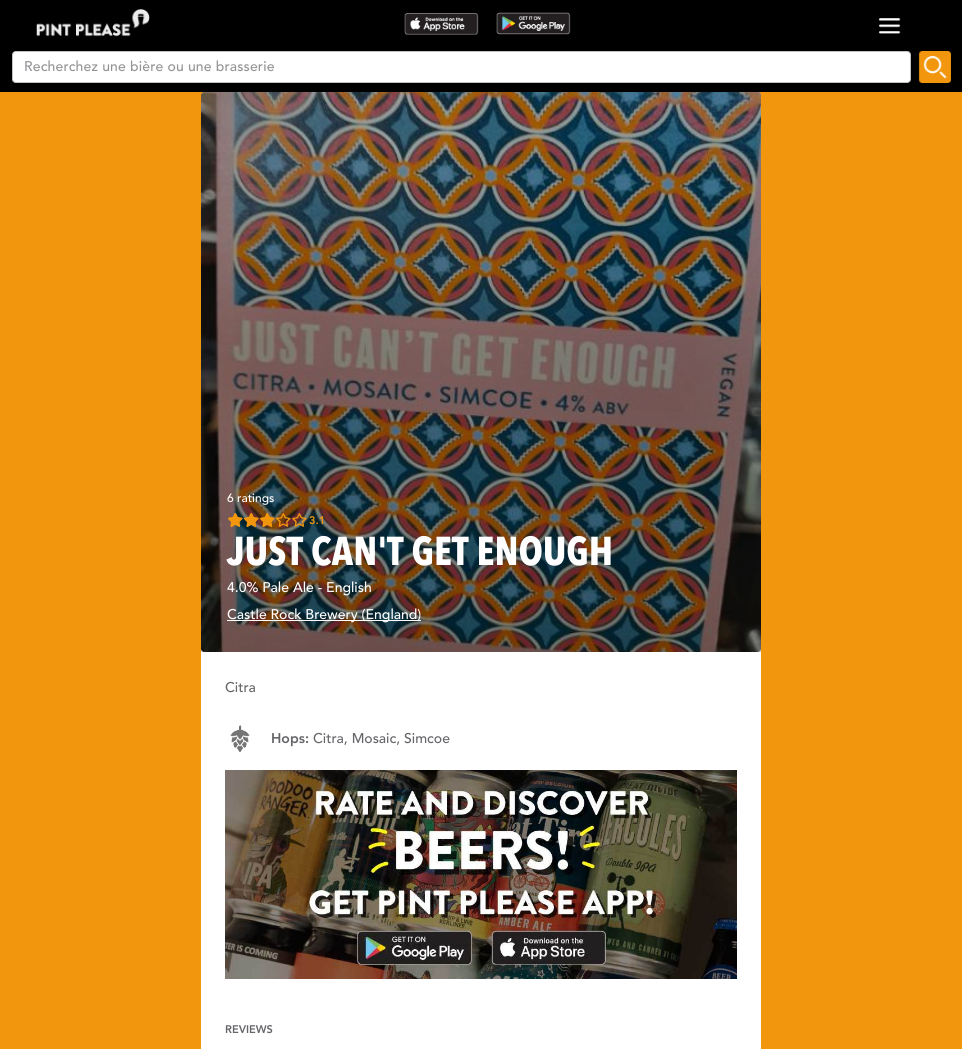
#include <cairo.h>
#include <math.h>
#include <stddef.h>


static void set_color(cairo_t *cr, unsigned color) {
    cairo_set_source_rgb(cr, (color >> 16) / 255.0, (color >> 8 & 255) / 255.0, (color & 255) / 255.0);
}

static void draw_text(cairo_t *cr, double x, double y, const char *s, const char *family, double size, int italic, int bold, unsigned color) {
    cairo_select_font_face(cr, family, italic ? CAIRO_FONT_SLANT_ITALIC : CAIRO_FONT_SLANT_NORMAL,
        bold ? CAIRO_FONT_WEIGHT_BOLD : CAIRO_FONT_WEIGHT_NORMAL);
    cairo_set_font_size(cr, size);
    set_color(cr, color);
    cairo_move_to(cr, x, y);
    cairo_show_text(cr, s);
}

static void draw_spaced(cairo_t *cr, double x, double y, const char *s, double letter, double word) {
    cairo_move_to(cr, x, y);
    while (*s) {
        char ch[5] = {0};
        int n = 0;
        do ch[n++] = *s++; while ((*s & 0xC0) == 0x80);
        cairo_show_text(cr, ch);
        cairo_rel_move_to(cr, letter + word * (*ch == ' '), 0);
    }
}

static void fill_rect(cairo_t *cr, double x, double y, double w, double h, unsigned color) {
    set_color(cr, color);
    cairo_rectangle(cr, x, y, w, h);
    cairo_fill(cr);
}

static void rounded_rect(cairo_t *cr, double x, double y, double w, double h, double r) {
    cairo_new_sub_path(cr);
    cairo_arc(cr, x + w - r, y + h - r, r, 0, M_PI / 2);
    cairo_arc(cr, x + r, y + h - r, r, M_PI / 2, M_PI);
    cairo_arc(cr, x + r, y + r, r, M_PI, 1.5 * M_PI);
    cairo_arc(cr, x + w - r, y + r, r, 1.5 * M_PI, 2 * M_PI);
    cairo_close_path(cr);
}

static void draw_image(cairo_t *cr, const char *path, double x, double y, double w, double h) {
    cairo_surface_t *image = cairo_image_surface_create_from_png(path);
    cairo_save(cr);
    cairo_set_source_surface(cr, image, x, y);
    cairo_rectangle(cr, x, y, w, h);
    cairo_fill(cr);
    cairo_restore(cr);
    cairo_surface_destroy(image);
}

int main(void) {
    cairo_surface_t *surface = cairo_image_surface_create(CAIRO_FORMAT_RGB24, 962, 1049);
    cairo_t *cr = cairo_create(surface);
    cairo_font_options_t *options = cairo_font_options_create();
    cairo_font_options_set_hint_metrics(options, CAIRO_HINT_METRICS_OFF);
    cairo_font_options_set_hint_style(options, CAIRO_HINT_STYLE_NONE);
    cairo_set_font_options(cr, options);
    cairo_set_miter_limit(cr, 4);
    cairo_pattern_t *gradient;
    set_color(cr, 0xF2970D);
    cairo_paint(cr);
    fill_rect(cr, 0, 0, 962, 92, 0x000000);
    draw_image(cr, "assets/img1.png", 36, 9, 114, 28);
    draw_image(cr, "assets/img2.png", 404, 13, 75, 22);
    draw_image(cr, "assets/img3.png", 496, 12, 75, 23);
    draw_image(cr, "assets/img4.png", 878, 18, 23, 16);
    set_color(cr, 0xFFFFFF);
    rounded_rect(cr, 12, 51, 899, 32, 4);
    cairo_fill(cr);
    rounded_rect(cr, 12.5, 51.5, 898, 31, 3.5);
    cairo_set_source_rgba(cr, 0, 0, 0, 0.24);
    cairo_set_line_width(cr, 1);
    cairo_stroke(cr);
    cairo_select_font_face(cr, "Avenir Medium", CAIRO_FONT_SLANT_NORMAL, CAIRO_FONT_WEIGHT_NORMAL);
    cairo_set_font_size(cr, 14);
    set_color(cr, 0x949497);
    draw_spaced(cr, 24, 71, "Recherchez une bière ou une brasserie", 0.15, 0);
    draw_image(cr, "assets/img5.png", 918, 51, 33, 32);
    set_color(cr, 0xFFFFFF);
    rounded_rect(cr, 201, 92, 560, 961, 4);
    cairo_fill(cr);
    set_color(cr, 0x000000);
    rounded_rect(cr, 201, 92, 560, 560, 4);
    cairo_fill(cr);
    draw_image(cr, "assets/img6.png", 201, 92, 560, 560);
    gradient = cairo_pattern_create_linear(481, 92, 481, 652);
    cairo_pattern_add_color_stop_rgba(gradient, 0, 0, 0, 0, 0);
    cairo_pattern_add_color_stop_rgba(gradient, 1, 0, 0, 0, 0.2);
    cairo_set_source(cr, gradient);
    cairo_pattern_destroy(gradient);
    cairo_rectangle(cr, 201, 152, 560, 500);
    cairo_fill(cr);
    draw_text(cr, 227, 502, "6 ratings", "Avenir Medium", 12, 0, 0, 0xFFFFFF);
    draw_image(cr, "assets/img7.png", 228, 513, 79, 14);
    draw_image(cr, "assets/img8.png", 228, 513, 49, 14);
    draw_text(cr, 309, 524, "3.1", "Avenir Black", 11, 0, 0, 0xF2970D);
    draw_text(cr, 227, 565, "JUST CAN'T GET ENOUGH", "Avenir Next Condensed", 40, 0, 1, 0xFFFFFF);
    draw_text(cr, 227, 592, "4.0% Pale Ale - English", "Avenir Medium", 14, 0, 0, 0xFFFFFF);
    fill_rect(cr, 227, 620, 194, 1, 0xFFFFFF);
    draw_text(cr, 227, 619, "Castle Rock Brewery (England)", "Avenir Medium", 14, 0, 0, 0xFFFFFF);
    draw_text(cr, 225, 692, "Citra", "Avenir Medium", 14, 0, 0, 0x66666A);
    draw_image(cr, "assets/img9.png", 230, 725, 20, 28);
    draw_text(cr, 271, 743, "Hops:", "Avenir Black", 14, 0, 0, 0x66666A);
    draw_text(cr, 313, 743, "Citra, Mosaic, Simcoe", "Avenir Medium", 14, 0, 0, 0x66666A);
    draw_image(cr, "assets/img10.png", 225, 770, 512, 209);
    draw_text(cr, 225, 1033, "REVIEWS", "Avenir Black", 11, 0, 0, 0x66666A);
    cairo_surface_write_to_png(surface, "output.png");
    cairo_font_options_destroy(options);
    cairo_destroy(cr);
    cairo_surface_destroy(surface);
    return 0;
}
